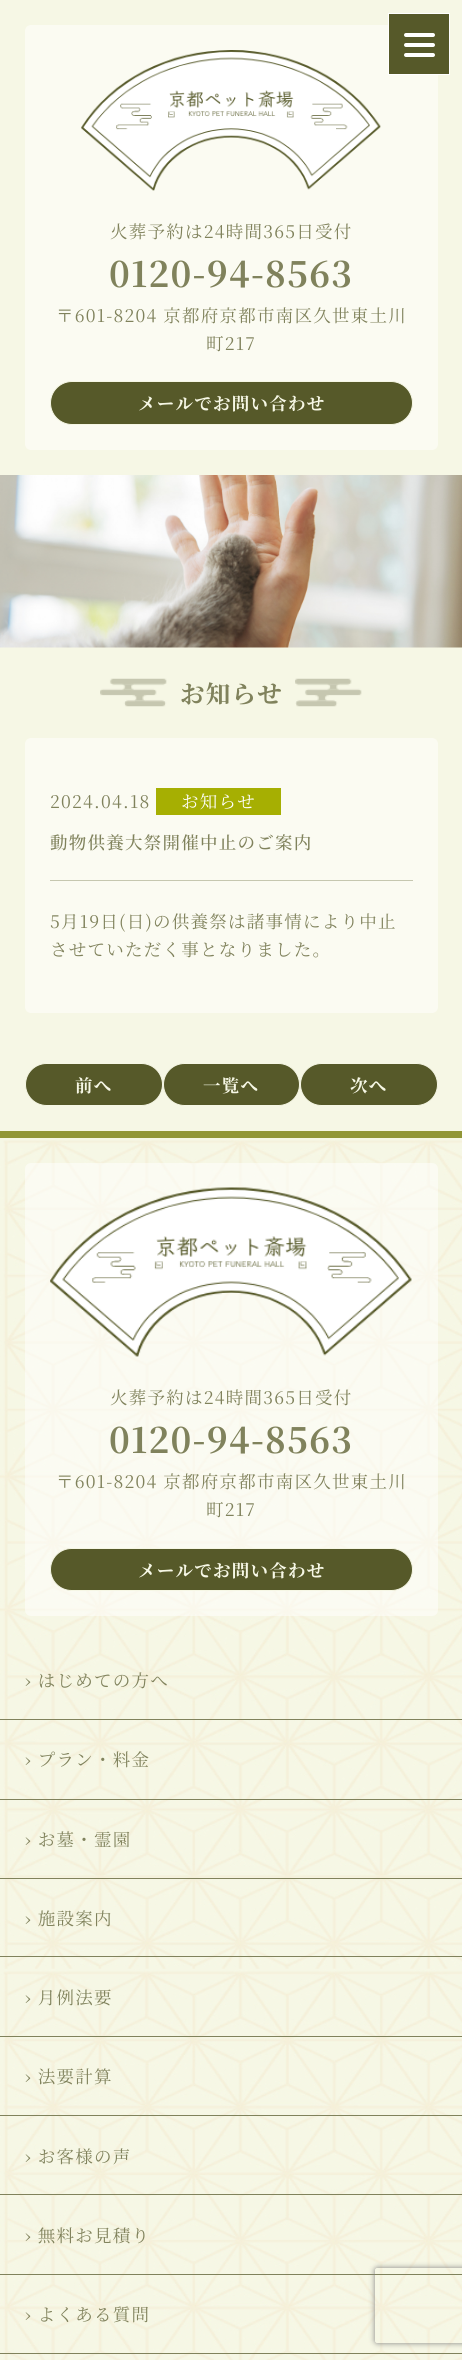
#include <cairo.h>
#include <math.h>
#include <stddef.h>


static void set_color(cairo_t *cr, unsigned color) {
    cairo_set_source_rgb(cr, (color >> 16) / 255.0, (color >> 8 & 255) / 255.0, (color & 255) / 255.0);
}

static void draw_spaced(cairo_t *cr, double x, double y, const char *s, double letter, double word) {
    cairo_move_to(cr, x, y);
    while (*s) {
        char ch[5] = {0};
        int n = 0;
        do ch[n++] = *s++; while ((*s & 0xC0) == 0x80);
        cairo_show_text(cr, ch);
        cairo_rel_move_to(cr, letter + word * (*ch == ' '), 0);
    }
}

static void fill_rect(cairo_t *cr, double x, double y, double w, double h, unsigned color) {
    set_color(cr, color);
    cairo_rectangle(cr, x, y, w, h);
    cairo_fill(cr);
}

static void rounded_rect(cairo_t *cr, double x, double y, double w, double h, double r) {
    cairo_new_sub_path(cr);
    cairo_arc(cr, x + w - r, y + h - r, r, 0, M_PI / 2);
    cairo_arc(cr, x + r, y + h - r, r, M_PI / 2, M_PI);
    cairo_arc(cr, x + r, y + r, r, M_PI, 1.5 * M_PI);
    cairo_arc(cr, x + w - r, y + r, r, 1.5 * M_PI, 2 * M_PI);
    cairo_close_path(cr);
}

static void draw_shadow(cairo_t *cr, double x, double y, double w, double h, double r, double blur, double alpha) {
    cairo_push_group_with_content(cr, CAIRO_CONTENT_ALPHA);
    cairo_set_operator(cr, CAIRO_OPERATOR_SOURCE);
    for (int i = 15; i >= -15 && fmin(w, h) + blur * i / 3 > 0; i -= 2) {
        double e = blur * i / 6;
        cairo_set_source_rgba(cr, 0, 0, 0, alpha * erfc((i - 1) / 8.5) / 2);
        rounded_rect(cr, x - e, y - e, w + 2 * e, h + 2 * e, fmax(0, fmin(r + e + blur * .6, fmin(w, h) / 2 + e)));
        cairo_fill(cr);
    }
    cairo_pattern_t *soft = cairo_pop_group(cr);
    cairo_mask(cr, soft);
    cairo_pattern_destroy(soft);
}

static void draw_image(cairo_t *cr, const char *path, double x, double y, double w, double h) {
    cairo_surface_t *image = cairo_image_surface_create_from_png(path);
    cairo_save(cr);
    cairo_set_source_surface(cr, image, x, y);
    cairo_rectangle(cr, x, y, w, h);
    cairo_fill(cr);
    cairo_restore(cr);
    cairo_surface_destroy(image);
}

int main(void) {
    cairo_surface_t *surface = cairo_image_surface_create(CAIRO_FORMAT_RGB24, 462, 2360);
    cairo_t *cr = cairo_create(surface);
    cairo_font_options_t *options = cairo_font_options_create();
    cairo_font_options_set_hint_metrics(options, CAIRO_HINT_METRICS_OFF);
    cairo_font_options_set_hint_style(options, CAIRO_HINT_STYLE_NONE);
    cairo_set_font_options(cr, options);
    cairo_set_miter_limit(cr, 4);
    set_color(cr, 0xF6F7E5);
    cairo_paint(cr);
    set_color(cr, 0xFBFBF2);
    rounded_rect(cr, 25, 25, 413, 425, 6);
    cairo_fill(cr);
    set_color(cr, 0x565929);
    cairo_rectangle(cr, 388.5, 13.5, 61, 61);
    cairo_fill_preserve(cr);
    set_color(cr, 0xFFFFFF);
    cairo_set_line_width(cr, 1);
    cairo_stroke(cr);
    rounded_rect(cr, 404, 43, 31, 4, 2);
    cairo_fill(cr);
    rounded_rect(cr, 404, 33, 31, 4, 2);
    cairo_fill(cr);
    rounded_rect(cr, 404, 53, 31, 4, 2);
    cairo_fill(cr);
    draw_image(cr, "assets/img1.png", 81, 50, 300, 141);
    cairo_select_font_face(cr, "Noto Serif JP", CAIRO_FONT_SLANT_NORMAL, CAIRO_FONT_WEIGHT_NORMAL);
    cairo_set_font_size(cr, 17.5);
    set_color(cr, 0x80825C);
    draw_spaced(cr, 110, 238, "火葬予約は24時間365日受付", 1.25, 0);
    cairo_select_font_face(cr, "Noto Serif JP", CAIRO_FONT_SLANT_NORMAL, CAIRO_FONT_WEIGHT_BOLD);
    cairo_set_font_size(cr, 35);
    draw_spaced(cr, 109, 287, "0120-94-8563", 1.25, 0);
    cairo_select_font_face(cr, "Noto Serif JP", CAIRO_FONT_SLANT_NORMAL, CAIRO_FONT_WEIGHT_NORMAL);
    cairo_set_font_size(cr, 17.5);
    draw_spaced(cr, 56, 322, "〒601-8204 京都府京都市南区久世東土川", 1.25, 0);
    draw_spaced(cr, 206, 350, "町217", 1.25, 0);
    set_color(cr, 0x565929);
    rounded_rect(cr, 50.5, 381.5, 362, 43, 21.5);
    cairo_fill_preserve(cr);
    set_color(cr, 0xF6F7E5);
    cairo_stroke(cr);
    cairo_select_font_face(cr, "Noto Serif JP", CAIRO_FONT_SLANT_NORMAL, CAIRO_FONT_WEIGHT_BOLD);
    draw_spaced(cr, 138, 410, "メールでお問い合わせ", 1.25, 0);
    draw_image(cr, "assets/img2.png", 0, 475, 462, 173);
    draw_image(cr, "assets/img3.png", 100, 678, 67, 29);
    cairo_set_font_size(cr, 24.5);
    set_color(cr, 0x80825C);
    draw_spaced(cr, 180, 703, "お知らせ", 1.25, 0);
    draw_image(cr, "assets/img4.png", 295, 678, 67, 29);
    set_color(cr, 0xFBFBF2);
    rounded_rect(cr, 25, 738, 413, 275, 6);
    cairo_fill(cr);
    fill_rect(cr, 50, 880, 363, 1, 0xC6C7B0);
    cairo_select_font_face(cr, "Noto Serif JP", CAIRO_FONT_SLANT_NORMAL, CAIRO_FONT_WEIGHT_NORMAL);
    cairo_set_font_size(cr, 17.5);
    set_color(cr, 0x80825C);
    draw_spaced(cr, 50, 808, "2024.04.18", 1.25, 0);
    fill_rect(cr, 156, 788, 125, 27, 0xA6AF02);
    set_color(cr, 0xFFFFFF);
    draw_spaced(cr, 181, 808, "お知らせ", 1.25, 0);
    cairo_select_font_face(cr, "Noto Serif JP Medium", CAIRO_FONT_SLANT_NORMAL, CAIRO_FONT_WEIGHT_NORMAL);
    set_color(cr, 0x80825C);
    draw_spaced(cr, 50, 849, "動物供養大祭開催中止のご案内", 1.25, 0);
    cairo_select_font_face(cr, "Noto Serif JP", CAIRO_FONT_SLANT_NORMAL, CAIRO_FONT_WEIGHT_NORMAL);
    draw_spaced(cr, 50, 928, "5月19日(日)の供養祭は諸事情により中止", 1.25, 0);
    draw_spaced(cr, 50, 956, "させていただく事となりました。", 1.25, 0);
    set_color(cr, 0x565929);
    rounded_rect(cr, 25.5, 1063.5, 137, 42, 21);
    cairo_fill_preserve(cr);
    set_color(cr, 0xF6F7E5);
    cairo_stroke(cr);
    cairo_select_font_face(cr, "Noto Serif JP", CAIRO_FONT_SLANT_NORMAL, CAIRO_FONT_WEIGHT_BOLD);
    draw_spaced(cr, 75, 1092, "前へ", 1.25, 0);
    set_color(cr, 0x565929);
    rounded_rect(cr, 163.5, 1063.5, 136, 42, 21);
    cairo_fill_preserve(cr);
    set_color(cr, 0xF6F7E5);
    cairo_stroke(cr);
    draw_spaced(cr, 203, 1092, "一覧へ", 1.25, 0);
    set_color(cr, 0x565929);
    rounded_rect(cr, 300.5, 1063.5, 137, 42, 21);
    cairo_fill_preserve(cr);
    set_color(cr, 0xF6F7E5);
    cairo_stroke(cr);
    draw_spaced(cr, 350, 1092, "次へ", 1.25, 0);
    draw_image(cr, "assets/img5.png", 0, 1138, 462, 1222);
    fill_rect(cr, 0, 1131, 462, 7, 0x919636);
    cairo_set_source_rgba(cr, 1, 1, 1, 0.5);
    rounded_rect(cr, 25, 1163, 413, 453, 6);
    cairo_fill(cr);
    draw_image(cr, "assets/img6.png", 50, 1187, 362, 170);
    cairo_select_font_face(cr, "Noto Serif JP", CAIRO_FONT_SLANT_NORMAL, CAIRO_FONT_WEIGHT_NORMAL);
    set_color(cr, 0x80825C);
    draw_spaced(cr, 110, 1404, "火葬予約は24時間365日受付", 1.25, 0);
    cairo_select_font_face(cr, "Noto Serif JP", CAIRO_FONT_SLANT_NORMAL, CAIRO_FONT_WEIGHT_BOLD);
    cairo_set_font_size(cr, 35);
    draw_spaced(cr, 109, 1453, "0120-94-8563", 1.25, 0);
    cairo_select_font_face(cr, "Noto Serif JP", CAIRO_FONT_SLANT_NORMAL, CAIRO_FONT_WEIGHT_NORMAL);
    cairo_set_font_size(cr, 17.5);
    draw_spaced(cr, 56, 1488, "〒601-8204 京都府京都市南区久世東土川", 1.25, 0);
    draw_spaced(cr, 206, 1516, "町217", 1.25, 0);
    set_color(cr, 0x565929);
    rounded_rect(cr, 50.5, 1548.5, 362, 42, 21);
    cairo_fill_preserve(cr);
    set_color(cr, 0xF6F7E5);
    cairo_stroke(cr);
    cairo_select_font_face(cr, "Noto Serif JP", CAIRO_FONT_SLANT_NORMAL, CAIRO_FONT_WEIGHT_BOLD);
    draw_spaced(cr, 138, 1577, "メールでお問い合わせ", 1.25, 0);
    fill_rect(cr, 0, 1719, 462, 1, 0x80825C);
    cairo_select_font_face(cr, "Noto Serif JP", CAIRO_FONT_SLANT_NORMAL, CAIRO_FONT_WEIGHT_NORMAL);
    draw_spaced(cr, 25, 1687, "› はじめての方へ", 1.25, 0);
    fill_rect(cr, 0, 1799, 462, 1, 0x80825C);
    draw_spaced(cr, 25, 1766, "› プラン・料金", 1.25, 0);
    fill_rect(cr, 0, 1878, 462, 1, 0x80825C);
    draw_spaced(cr, 25, 1846, "› お墓・霊園", 1.25, 0);
    fill_rect(cr, 0, 1956, 462, 1, 0x80825C);
    draw_spaced(cr, 25, 1925, "› 施設案内", 1.25, 0);
    fill_rect(cr, 0, 2036, 462, 1, 0x80825C);
    draw_spaced(cr, 25, 2004, "› 月例法要", 1.25, 0);
    fill_rect(cr, 0, 2115, 462, 1, 0x80825C);
    draw_spaced(cr, 25, 2083, "› 法要計算", 1.25, 0);
    fill_rect(cr, 0, 2194, 462, 1, 0x80825C);
    draw_spaced(cr, 25, 2163, "› お客様の声", 1.25, 0);
    fill_rect(cr, 0, 2274, 462, 1, 0x80825C);
    draw_spaced(cr, 25, 2242, "› 無料お見積り", 1.25, 0);
    fill_rect(cr, 0, 2353, 462, 1, 0x80825C);
    draw_spaced(cr, 25, 2321, "› よくある質問", 1.25, 0);
    cairo_save(cr);
    cairo_set_fill_rule(cr, CAIRO_FILL_RULE_EVEN_ODD);
    cairo_new_path(cr);
    cairo_move_to(cr, 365, 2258);
    cairo_line_to(cr, 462, 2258);
    cairo_line_to(cr, 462, 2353);
    cairo_line_to(cr, 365, 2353);
    cairo_close_path(cr);
    cairo_move_to(cr, 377.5, 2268);
    cairo_line_to(cr, 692.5, 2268);
    cairo_curve_to(cr, 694, 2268, 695, 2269, 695, 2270.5);
    cairo_line_to(cr, 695, 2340.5);
    cairo_curve_to(cr, 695, 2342, 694, 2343, 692.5, 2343);
    cairo_line_to(cr, 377.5, 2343);
    cairo_curve_to(cr, 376, 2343, 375, 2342, 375, 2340.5);
    cairo_line_to(cr, 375, 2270.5);
    cairo_curve_to(cr, 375, 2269, 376, 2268, 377.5, 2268);
    cairo_close_path(cr);
    cairo_clip(cr);
    set_color(cr, 0x808080);
    draw_shadow(cr, 375, 2268, 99, 75, 2.5, 3, 1);
    cairo_restore(cr);
    cairo_surface_write_to_png(surface, "output.png");
    cairo_font_options_destroy(options);
    cairo_destroy(cr);
    cairo_surface_destroy(surface);
    return 0;
}
